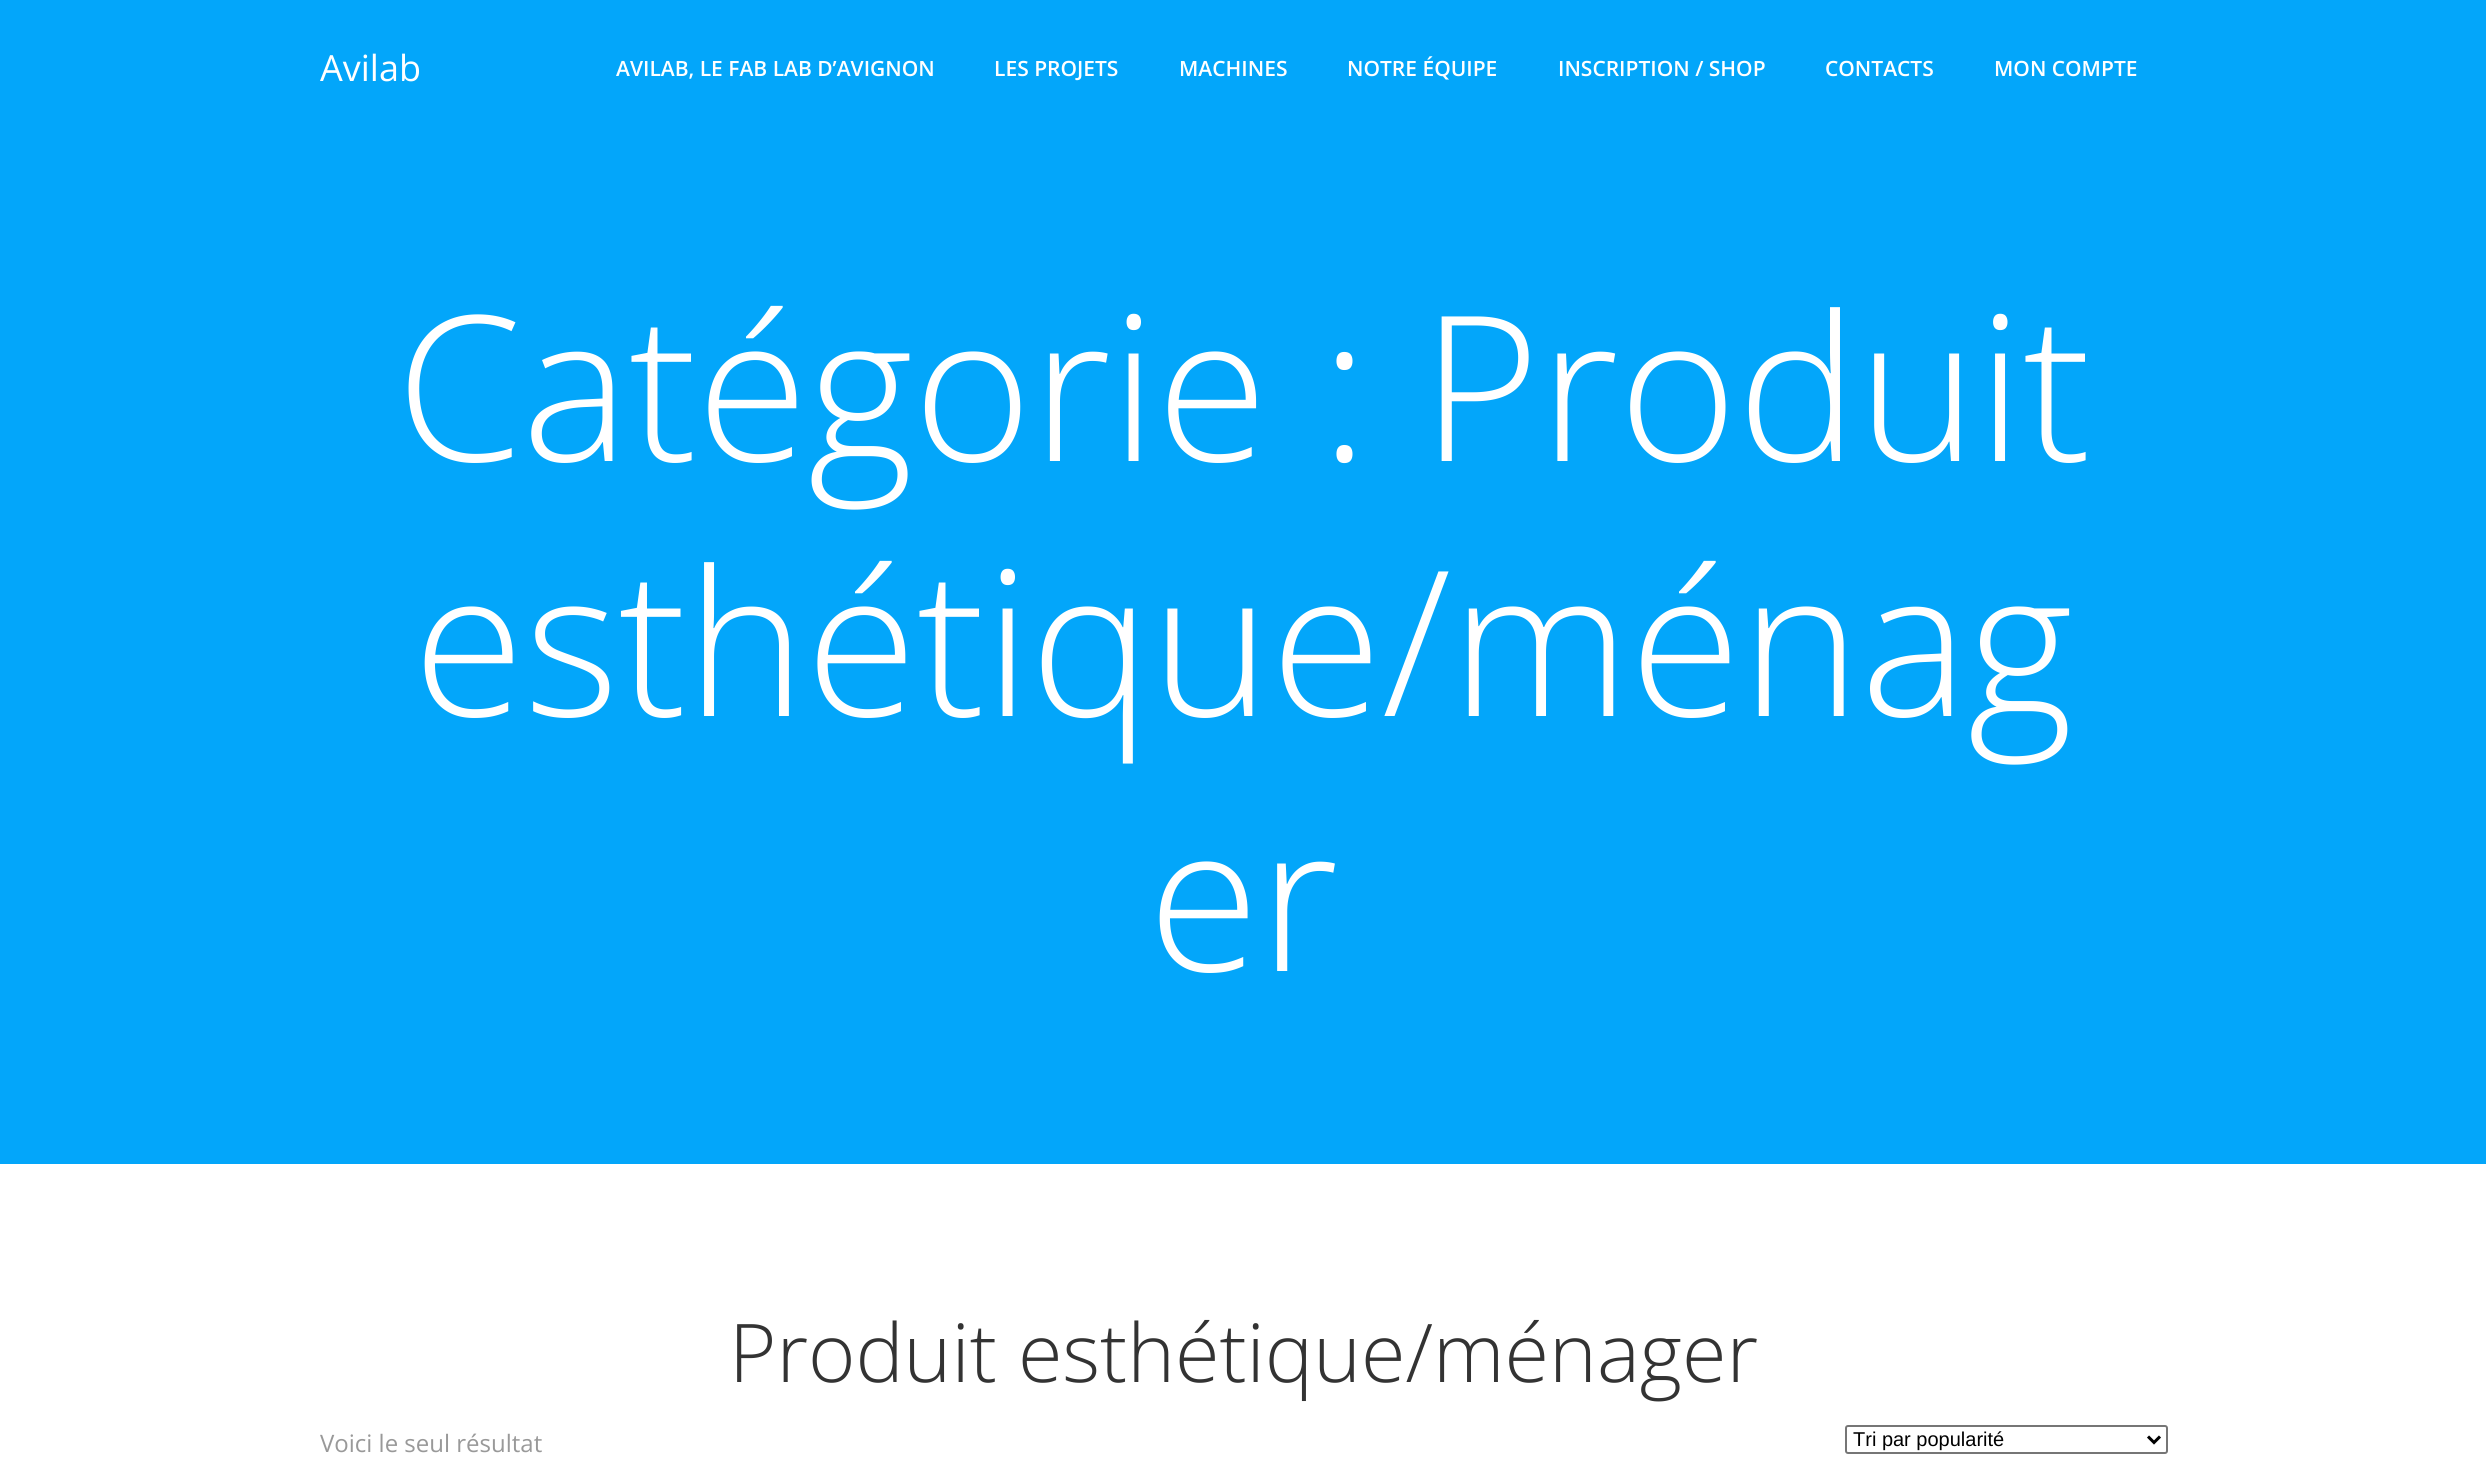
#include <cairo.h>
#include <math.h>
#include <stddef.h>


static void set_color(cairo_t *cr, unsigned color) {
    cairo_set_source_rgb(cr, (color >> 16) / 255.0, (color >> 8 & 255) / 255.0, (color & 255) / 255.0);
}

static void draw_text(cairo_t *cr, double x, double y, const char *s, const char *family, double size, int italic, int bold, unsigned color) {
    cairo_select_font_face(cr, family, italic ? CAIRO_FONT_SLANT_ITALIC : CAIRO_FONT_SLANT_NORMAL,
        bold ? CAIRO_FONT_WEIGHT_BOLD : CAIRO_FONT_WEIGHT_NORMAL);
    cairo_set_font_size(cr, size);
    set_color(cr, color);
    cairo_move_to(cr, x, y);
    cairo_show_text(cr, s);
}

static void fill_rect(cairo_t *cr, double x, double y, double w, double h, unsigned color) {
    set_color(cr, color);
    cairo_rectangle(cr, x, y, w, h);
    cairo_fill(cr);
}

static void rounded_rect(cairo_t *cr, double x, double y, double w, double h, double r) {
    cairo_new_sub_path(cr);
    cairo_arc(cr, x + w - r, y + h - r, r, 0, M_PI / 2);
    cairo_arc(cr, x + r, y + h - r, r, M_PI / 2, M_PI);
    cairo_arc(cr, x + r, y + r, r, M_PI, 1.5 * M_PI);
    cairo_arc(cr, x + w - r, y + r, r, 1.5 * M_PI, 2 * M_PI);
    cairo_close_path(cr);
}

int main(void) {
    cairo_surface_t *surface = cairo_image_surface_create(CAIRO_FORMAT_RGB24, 2486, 1474);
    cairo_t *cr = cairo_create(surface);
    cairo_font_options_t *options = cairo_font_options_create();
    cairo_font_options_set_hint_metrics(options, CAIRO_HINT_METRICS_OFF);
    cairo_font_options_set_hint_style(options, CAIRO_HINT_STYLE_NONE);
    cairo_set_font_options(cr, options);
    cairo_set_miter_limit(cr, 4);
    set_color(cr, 0xFFFFFF);
    cairo_paint(cr);
    fill_rect(cr, 0, 0, 2486, 1164, 0x03A6FA);
    draw_text(cr, 320, 81, "Avilab", "Open Sans", 36, 0, 0, 0xFFFFFF);
    draw_text(cr, 616, 76, "AVILAB, LE FAB LAB D’AVIGNON", "Open Sans SemiBold", 21, 0, 0, 0xFFFFFF);
    draw_text(cr, 994, 76, "LES PROJETS", "Open Sans SemiBold", 21, 0, 0, 0xFFFFFF);
    draw_text(cr, 1179, 76, "MACHINES", "Open Sans SemiBold", 21, 0, 0, 0xFFFFFF);
    draw_text(cr, 1347, 76, "NOTRE ÉQUIPE", "Open Sans SemiBold", 21, 0, 0, 0xFFFFFF);
    draw_text(cr, 1558, 76, "INSCRIPTION / SHOP", "Open Sans SemiBold", 21, 0, 0, 0xFFFFFF);
    draw_text(cr, 1825, 76, "CONTACTS", "Open Sans SemiBold", 21, 0, 0, 0xFFFFFF);
    draw_text(cr, 1994, 76, "MON COMPTE", "Open Sans SemiBold", 21, 0, 0, 0xFFFFFF);
    draw_text(cr, 396, 461, "Catégorie : Produit", "Open Sans Light", 202.5, 0, 0, 0xFFFFFF);
    draw_text(cr, 413, 716, "esthétique/ménag", "Open Sans Light", 202.5, 0, 0, 0xFFFFFF);
    draw_text(cr, 1148, 971, "er", "Open Sans Light", 202.5, 0, 0, 0xFFFFFF);
    draw_text(cr, 729, 1382, "Produit esthétique/ménager", "Open Sans Light", 81, 0, 0, 0x333333);
    draw_text(cr, 320, 1452, "Voici le seul résultat", "Open Sans", 24, 0, 0, 0x999999);
    rounded_rect(cr, 1846, 1426, 321, 27, 2);
    set_color(cr, 0x767676);
    cairo_stroke(cr);
    cairo_new_path(cr);
    cairo_move_to(cr, 2148, 1436.5);
    cairo_line_to(cr, 2154, 1442.5);
    cairo_line_to(cr, 2160, 1436.5);
    set_color(cr, 0x000000);
    cairo_set_line_width(cr, 3);
    cairo_stroke(cr);
    draw_text(cr, 1853, 1446, "Tri par popularité", "Liberation Sans", 20, 0, 0, 0x000000);
    cairo_surface_write_to_png(surface, "output.png");
    cairo_font_options_destroy(options);
    cairo_destroy(cr);
    cairo_surface_destroy(surface);
    return 0;
}
